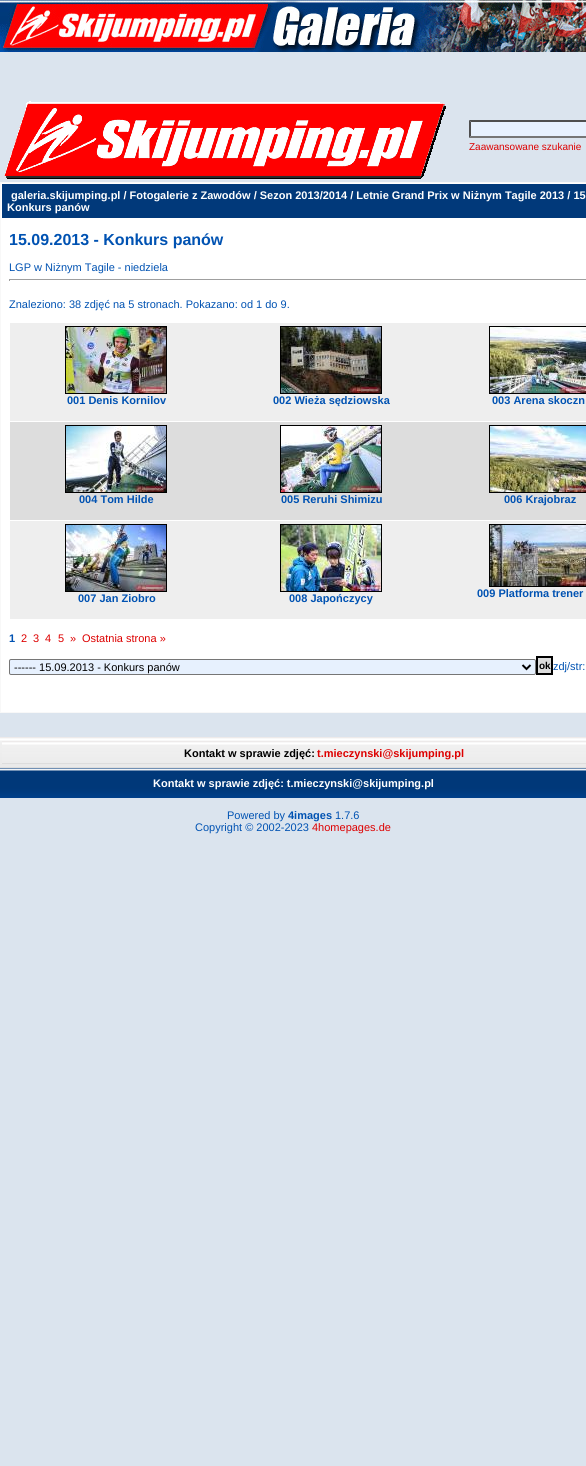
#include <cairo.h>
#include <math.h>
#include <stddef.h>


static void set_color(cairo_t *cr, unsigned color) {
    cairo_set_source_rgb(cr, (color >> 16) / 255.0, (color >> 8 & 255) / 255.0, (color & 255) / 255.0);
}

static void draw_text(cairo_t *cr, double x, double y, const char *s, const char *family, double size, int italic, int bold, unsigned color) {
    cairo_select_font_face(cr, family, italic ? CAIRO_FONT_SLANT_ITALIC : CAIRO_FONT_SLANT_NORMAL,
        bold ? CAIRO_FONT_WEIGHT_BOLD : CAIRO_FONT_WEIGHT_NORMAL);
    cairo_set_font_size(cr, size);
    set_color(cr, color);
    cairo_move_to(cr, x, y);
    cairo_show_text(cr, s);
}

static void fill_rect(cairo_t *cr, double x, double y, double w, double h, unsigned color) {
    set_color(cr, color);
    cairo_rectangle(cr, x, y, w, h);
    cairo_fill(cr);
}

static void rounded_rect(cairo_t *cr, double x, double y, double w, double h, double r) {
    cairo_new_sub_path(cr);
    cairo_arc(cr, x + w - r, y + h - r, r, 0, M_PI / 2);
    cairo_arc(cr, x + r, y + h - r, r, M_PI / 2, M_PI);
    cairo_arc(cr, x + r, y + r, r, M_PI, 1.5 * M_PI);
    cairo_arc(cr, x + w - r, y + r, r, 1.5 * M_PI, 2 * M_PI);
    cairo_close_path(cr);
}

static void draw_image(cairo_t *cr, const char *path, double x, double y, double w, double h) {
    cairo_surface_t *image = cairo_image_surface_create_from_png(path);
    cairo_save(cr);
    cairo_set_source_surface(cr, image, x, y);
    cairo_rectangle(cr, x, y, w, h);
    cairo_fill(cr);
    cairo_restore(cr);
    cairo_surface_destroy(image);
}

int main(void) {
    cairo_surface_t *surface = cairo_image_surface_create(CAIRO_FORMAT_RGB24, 586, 1466);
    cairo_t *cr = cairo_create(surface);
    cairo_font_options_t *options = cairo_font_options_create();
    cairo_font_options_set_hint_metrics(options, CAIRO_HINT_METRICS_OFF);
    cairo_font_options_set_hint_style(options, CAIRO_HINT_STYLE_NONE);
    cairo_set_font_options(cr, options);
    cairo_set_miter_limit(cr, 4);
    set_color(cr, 0xDBE4EE);
    cairo_paint(cr);
    draw_image(cr, "assets/img1.png", 0, 0, 586, 52);
    draw_image(cr, "assets/img2.png", 4, 101, 442, 78);
    fill_rect(cr, 469, 120, 117, 18, 0xE7F1FE);
    set_color(cr, 0x4F4F4F);
    cairo_new_path(cr);
    cairo_move_to(cr, 469, 120);
    cairo_line_to(cr, 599, 120);
    cairo_line_to(cr, 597, 122);
    cairo_line_to(cr, 471, 122);
    cairo_close_path(cr);
    cairo_fill(cr);
    set_color(cr, 0x767676);
    cairo_new_path(cr);
    cairo_move_to(cr, 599, 138);
    cairo_line_to(cr, 469, 138);
    cairo_line_to(cr, 471, 136);
    cairo_line_to(cr, 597, 136);
    cairo_close_path(cr);
    cairo_fill(cr);
    set_color(cr, 0x4F4F4F);
    cairo_new_path(cr);
    cairo_move_to(cr, 469, 138);
    cairo_line_to(cr, 469, 120);
    cairo_line_to(cr, 471, 122);
    cairo_line_to(cr, 471, 136);
    cairo_close_path(cr);
    cairo_fill(cr);
    draw_text(cr, 469, 150, "Zaawansowane szukanie", "Liberation Sans", 10, 0, 0, 0xDD0000);
    fill_rect(cr, 0, 182, 586, 531, 0xF8F8F8);
    fill_rect(cr, 1, 183, 585, 529, 0xFFFFFF);
    fill_rect(cr, 2, 184, 584, 34, 0x01397A);
    draw_text(cr, 11, 199, "galeria.skijumping.pl / Fotogalerie z Zawodów / Sezon 2013/2014 / Letnie Grand Prix w Niżnym Tagile 2013 / 15", "Liberation Sans", 11, 0, 1, 0xFFFFFF);
    draw_text(cr, 7, 211, "Konkurs panów", "Liberation Sans", 11, 0, 1, 0xFFFFFF);
    draw_text(cr, 9, 245, "15.09.2013 - Konkurs panów", "Liberation Sans", 16, 0, 1, 0x0052B2);
    draw_text(cr, 9, 271, "LGP w Niżnym Tagile - niedziela", "Liberation Sans", 11, 0, 0, 0x0052B2);
    fill_rect(cr, 9, 279, 577, 1, 0x9F9F9F);
    fill_rect(cr, 9, 279, 1, 2, 0x9F9F9F);
    draw_text(cr, 9, 308, "Znaleziono: 38 zdjęć na 5 stronach. Pokazano: od 1 do 9.", "Liberation Sans", 11, 0, 0, 0x0052B2);
    fill_rect(cr, 10, 323, 576, 98, 0xEEEEEE);
    cairo_rectangle(cr, 65.5, 326.5, 101, 67);
    set_color(cr, 0x000000);
    cairo_set_line_width(cr, 1);
    cairo_stroke(cr);
    draw_image(cr, "assets/img3.png", 66, 327, 100, 66);
    draw_text(cr, 67, 404, "001 Denis Kornilov", "Liberation Sans", 11, 0, 1, 0x0052B2);
    cairo_rectangle(cr, 280.5, 326.5, 101, 67);
    set_color(cr, 0x000000);
    cairo_stroke(cr);
    draw_image(cr, "assets/img4.png", 281, 327, 100, 66);
    draw_text(cr, 273, 404, "002 Wieża sędziowska", "Liberation Sans", 11, 0, 1, 0x0052B2);
    cairo_rectangle(cr, 489.5, 326.5, 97, 67);
    set_color(cr, 0x000000);
    cairo_stroke(cr);
    draw_image(cr, "assets/img5.png", 490, 327, 96, 66);
    draw_text(cr, 492, 404, "003 Arena skoczn", "Liberation Sans", 11, 0, 1, 0x0052B2);
    fill_rect(cr, 10, 422, 576, 98, 0xDDDDDD);
    cairo_rectangle(cr, 65.5, 425.5, 101, 67);
    set_color(cr, 0x000000);
    cairo_stroke(cr);
    draw_image(cr, "assets/img6.png", 66, 426, 100, 66);
    draw_text(cr, 79, 503, "004 Tom Hilde", "Liberation Sans", 11, 0, 1, 0x0052B2);
    cairo_rectangle(cr, 280.5, 425.5, 101, 67);
    set_color(cr, 0x000000);
    cairo_stroke(cr);
    draw_image(cr, "assets/img7.png", 281, 426, 100, 66);
    draw_text(cr, 281, 503, "005 Reruhi Shimizu", "Liberation Sans", 11, 0, 1, 0x0052B2);
    cairo_rectangle(cr, 489.5, 425.5, 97, 67);
    set_color(cr, 0x000000);
    cairo_stroke(cr);
    draw_image(cr, "assets/img8.png", 490, 426, 96, 66);
    draw_text(cr, 504, 503, "006 Krajobraz", "Liberation Sans", 11, 0, 1, 0x0052B2);
    fill_rect(cr, 10, 521, 576, 98, 0xEEEEEE);
    cairo_rectangle(cr, 65.5, 524.5, 101, 67);
    set_color(cr, 0x000000);
    cairo_stroke(cr);
    draw_image(cr, "assets/img9.png", 66, 525, 100, 66);
    draw_text(cr, 78, 602, "007 Jan Ziobro", "Liberation Sans", 11, 0, 1, 0x0052B2);
    cairo_rectangle(cr, 280.5, 524.5, 101, 67);
    set_color(cr, 0x000000);
    cairo_stroke(cr);
    draw_image(cr, "assets/img10.png", 281, 525, 100, 66);
    draw_text(cr, 289, 602, "008 Japończycy", "Liberation Sans", 11, 0, 1, 0x0052B2);
    cairo_rectangle(cr, 489.5, 524.5, 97, 62);
    set_color(cr, 0x000000);
    cairo_stroke(cr);
    draw_image(cr, "assets/img11.png", 490, 525, 96, 61);
    draw_text(cr, 477, 597, "009 Platforma trener", "Liberation Sans", 11, 0, 1, 0x0052B2);
    draw_text(cr, 9, 642, "1", "Liberation Sans", 11, 0, 1, 0x0052B2);
    draw_text(cr, 21, 642, "2", "Liberation Sans", 11, 0, 0, 0xDD0000);
    draw_text(cr, 33, 642, "3", "Liberation Sans", 11, 0, 0, 0xDD0000);
    draw_text(cr, 45, 642, "4", "Liberation Sans", 11, 0, 0, 0xDD0000);
    draw_text(cr, 58, 642, "5", "Liberation Sans", 11, 0, 0, 0xDD0000);
    draw_text(cr, 70, 642, "»", "Liberation Sans", 11, 0, 0, 0xDD0000);
    draw_text(cr, 82, 642, "Ostatnia strona »", "Liberation Sans", 11, 0, 0, 0xDD0000);
    set_color(cr, 0xE7F1FE);
    rounded_rect(cr, 9.5, 659.5, 526, 15, 1.5);
    cairo_fill_preserve(cr);
    set_color(cr, 0x767676);
    cairo_stroke(cr);
    cairo_new_path(cr);
    cairo_move_to(cr, 522.5, 665);
    cairo_line_to(cr, 526.5, 669);
    cairo_line_to(cr, 530.5, 665);
    set_color(cr, 0x000000);
    cairo_set_line_width(cr, 2);
    cairo_stroke(cr);
    draw_text(cr, 14, 671, "------ 15.09.2013 - Konkurs panów", "Liberation Sans", 11, 0, 0, 0x000000);
    set_color(cr, 0xDDDDDD);
    cairo_rectangle(cr, 537, 657, 15, 17);
    cairo_fill_preserve(cr);
    set_color(cr, 0x000000);
    cairo_stroke(cr);
    draw_text(cr, 539, 669, "ok", "Liberation Sans", 10, 0, 1, 0x000000);
    draw_text(cr, 553, 670, "zdj/str:", "Liberation Sans", 11, 0, 0, 0x0052B2);
    draw_image(cr, "assets/img12.png", 0, 738, 586, 29);
    fill_rect(cr, 0, 737, 586, 1, 0xEDEAEA);
    fill_rect(cr, 0, 767, 586, 1, 0xDDDDDD);
    draw_image(cr, "assets/img13.png", 2, 742, 584, 21);
    fill_rect(cr, 2, 741, 584, 1, 0xEDEAEA);
    fill_rect(cr, 2, 763, 584, 1, 0xDDDDDD);
    draw_text(cr, 184, 757, "Kontakt w sprawie zdjęć:", "Liberation Sans", 11, 0, 1, 0x000000);
    draw_text(cr, 317, 757, "t.mieczynski@skijumping.pl", "Liberation Sans", 11, 0, 1, 0xDD0000);
    draw_image(cr, "assets/img14.png", 0, 768, 586, 30);
    draw_text(cr, 153, 787, "Kontakt w sprawie zdjęć: t.mieczynski@skijumping.pl", "Liberation Sans", 11, 0, 1, 0xFFFFFF);
    draw_text(cr, 227, 819, "Powered by", "Liberation Sans", 11, 0, 0, 0x0052B2);
    draw_text(cr, 288, 819, "4images", "Liberation Sans", 11, 0, 1, 0x0052B2);
    draw_text(cr, 335, 819, "1.7.6", "Liberation Sans", 11, 0, 0, 0x0052B2);
    draw_text(cr, 195, 831, "Copyright © 2002-2023", "Liberation Sans", 11, 0, 0, 0x0052B2);
    draw_text(cr, 312, 831, "4homepages.de", "Liberation Sans", 11, 0, 0, 0xDD0000);
    cairo_surface_write_to_png(surface, "output.png");
    cairo_font_options_destroy(options);
    cairo_destroy(cr);
    cairo_surface_destroy(surface);
    return 0;
}
